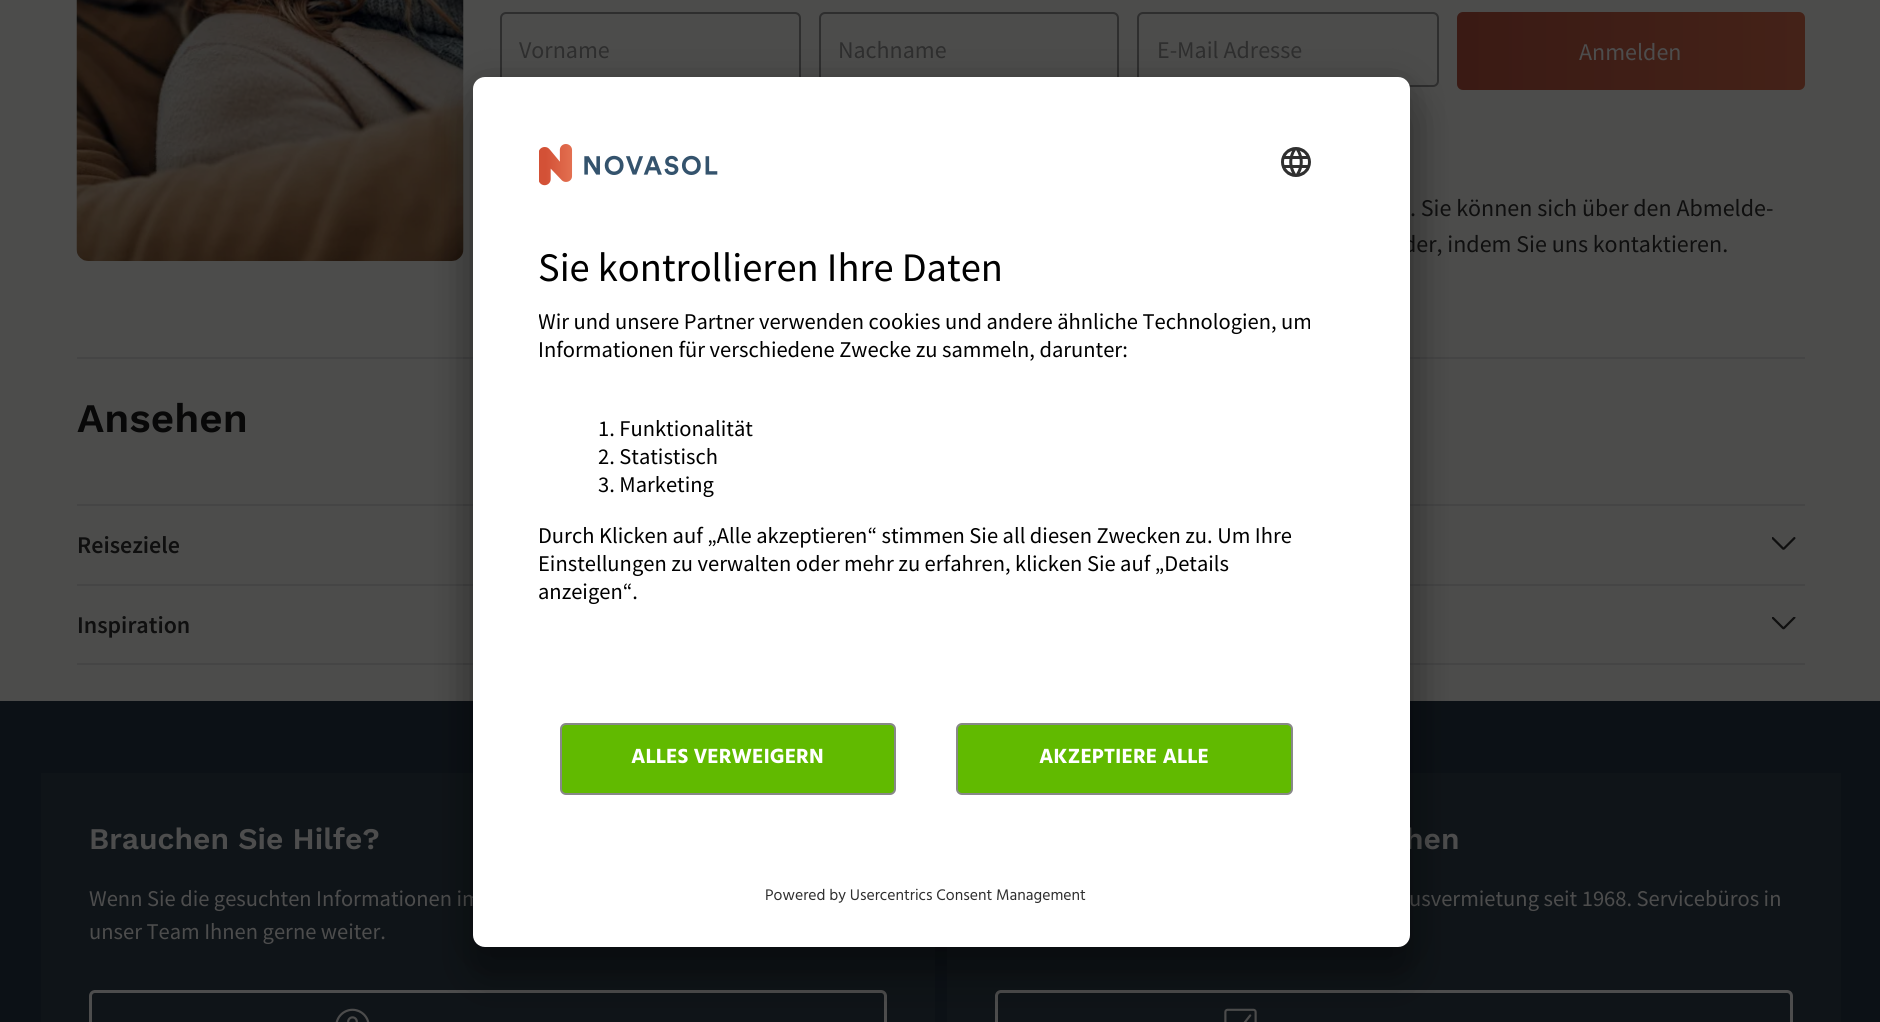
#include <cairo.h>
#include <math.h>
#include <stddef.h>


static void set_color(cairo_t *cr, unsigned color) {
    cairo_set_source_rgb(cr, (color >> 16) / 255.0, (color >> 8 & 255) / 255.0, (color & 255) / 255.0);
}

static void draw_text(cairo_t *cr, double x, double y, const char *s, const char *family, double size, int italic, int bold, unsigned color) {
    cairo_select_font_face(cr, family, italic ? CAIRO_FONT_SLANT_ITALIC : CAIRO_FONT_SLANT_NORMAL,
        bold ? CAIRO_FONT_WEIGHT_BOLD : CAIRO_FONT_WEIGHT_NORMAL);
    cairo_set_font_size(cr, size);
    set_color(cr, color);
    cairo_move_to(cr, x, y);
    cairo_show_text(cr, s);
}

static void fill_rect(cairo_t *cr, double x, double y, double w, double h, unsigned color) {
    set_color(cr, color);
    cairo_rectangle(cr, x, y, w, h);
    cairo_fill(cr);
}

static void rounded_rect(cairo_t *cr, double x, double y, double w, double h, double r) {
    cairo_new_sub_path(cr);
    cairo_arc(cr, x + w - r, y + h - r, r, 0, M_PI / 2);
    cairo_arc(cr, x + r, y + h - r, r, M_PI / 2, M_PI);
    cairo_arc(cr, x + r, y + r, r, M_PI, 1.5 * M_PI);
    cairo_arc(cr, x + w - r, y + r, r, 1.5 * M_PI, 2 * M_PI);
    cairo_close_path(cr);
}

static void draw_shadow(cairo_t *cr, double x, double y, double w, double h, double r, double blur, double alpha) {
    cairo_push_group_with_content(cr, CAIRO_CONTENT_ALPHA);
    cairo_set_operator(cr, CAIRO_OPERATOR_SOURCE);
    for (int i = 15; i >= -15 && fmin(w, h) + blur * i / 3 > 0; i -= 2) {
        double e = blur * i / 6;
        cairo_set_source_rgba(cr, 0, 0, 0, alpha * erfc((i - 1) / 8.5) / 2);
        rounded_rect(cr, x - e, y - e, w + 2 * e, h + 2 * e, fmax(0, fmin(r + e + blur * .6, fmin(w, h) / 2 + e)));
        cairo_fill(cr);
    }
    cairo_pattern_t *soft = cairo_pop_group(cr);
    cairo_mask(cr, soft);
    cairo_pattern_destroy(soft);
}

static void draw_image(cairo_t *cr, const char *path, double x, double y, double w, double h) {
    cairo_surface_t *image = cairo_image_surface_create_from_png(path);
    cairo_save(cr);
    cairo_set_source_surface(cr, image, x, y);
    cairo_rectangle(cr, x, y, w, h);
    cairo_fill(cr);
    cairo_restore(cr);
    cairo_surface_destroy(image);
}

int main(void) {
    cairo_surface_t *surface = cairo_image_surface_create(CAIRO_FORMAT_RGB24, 1880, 1022);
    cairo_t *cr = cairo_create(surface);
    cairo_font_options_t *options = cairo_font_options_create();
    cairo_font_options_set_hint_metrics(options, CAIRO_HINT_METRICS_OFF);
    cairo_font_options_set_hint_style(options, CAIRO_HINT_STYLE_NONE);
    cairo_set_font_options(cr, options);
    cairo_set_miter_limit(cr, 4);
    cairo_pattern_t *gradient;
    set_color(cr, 0x4C4C4B);
    cairo_paint(cr);
    draw_image(cr, "assets/img1.png", 76, 0, 388, 261);
    rounded_rect(cr, 501, 13, 299, 73, 5);
    set_color(cr, 0x2E2E2E);
    cairo_stroke(cr);
    draw_text(cr, 519, 58, "Vorname", "Source Sans Pro", 24, 0, 0, 0x2E2E2E);
    rounded_rect(cr, 820, 13, 298, 73, 5);
    cairo_stroke(cr);
    draw_text(cr, 838, 58, "Nachname", "Source Sans Pro", 24, 0, 0, 0x2E2E2E);
    rounded_rect(cr, 1138, 13, 300, 73, 5);
    cairo_stroke(cr);
    draw_text(cr, 1157, 58, "E-Mail Adresse", "Source Sans Pro", 24, 0, 0, 0x2E2E2E);
    gradient = cairo_pattern_create_linear(1457, 51, 1805, 51);
    cairo_pattern_add_color_stop_rgba(gradient, 0, 0.227, 0.102, 0.078, 1);
    cairo_pattern_add_color_stop_rgba(gradient, 1, 0.267, 0.133, 0.094, 1);
    cairo_set_source(cr, gradient);
    cairo_pattern_destroy(gradient);
    rounded_rect(cr, 1457, 12, 348, 78, 6);
    cairo_fill(cr);
    draw_text(cr, 1579, 60, "Anmelden", "Source Sans Pro", 24, 0, 0, 0x4D4D4D);
    draw_text(cr, 1410, 216, ". Sie können sich über den Abmelde-", "Source Sans Pro", 24, 0, 0, 0x0F0F0F);
    draw_text(cr, 1403, 252, "der, indem Sie uns kontaktieren.", "Source Sans Pro", 24, 0, 0, 0x0F0F0F);
    fill_rect(cr, 77, 357, 1728, 2, 0x454545);
    draw_text(cr, 77, 432, "Ansehen", "Work Sans SemiBold", 40.5, 0, 0, 0x080808);
    fill_rect(cr, 77, 504, 1728, 2, 0x454545);
    draw_text(cr, 77, 553, "Reiseziele", "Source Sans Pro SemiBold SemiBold", 24, 0, 0, 0x0F0F0F);
    draw_image(cr, "assets/img2.png", 1772, 537, 24, 13);
    fill_rect(cr, 77, 584, 1728, 2, 0x454545);
    fill_rect(cr, 77, 663, 1728, 2, 0x454545);
    draw_text(cr, 77, 633, "Inspiration", "Source Sans Pro SemiBold SemiBold", 24, 0, 0, 0x0F0F0F);
    draw_image(cr, "assets/img3.png", 1772, 617, 24, 13);
    fill_rect(cr, 0, 701, 1880, 321, 0x0C1116);
    fill_rect(cr, 41, 773, 894, 249, 0x0F1418);
    draw_text(cr, 89, 849, "Brauchen Sie Hilfe?", "Work Sans SemiBold", 30, 0, 0, 0x4D4D4D);
    draw_text(cr, 89, 906, "Wenn Sie die gesuchten Informationen im", "Source Sans Pro", 22.5, 0, 0, 0x4D4D4D);
    draw_text(cr, 89, 939, "unser Team Ihnen gerne weiter.", "Source Sans Pro", 22.5, 0, 0, 0x4D4D4D);
    rounded_rect(cr, 90.5, 991.5, 795, 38, 4.5);
    cairo_set_line_width(cr, 3);
    cairo_stroke(cr);
    draw_image(cr, "assets/img4.png", 335, 1008, 35, 14);
    fill_rect(cr, 947, 773, 894, 249, 0x0F1418);
    draw_text(cr, 1405, 849, "hen", "Work Sans SemiBold", 30, 0, 0, 0x4D4D4D);
    draw_text(cr, 1409, 906, "usvermietung seit 1968. Servicebüros in", "Source Sans Pro", 22.5, 0, 0, 0x4D4D4D);
    rounded_rect(cr, 996.5, 991.5, 795, 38, 4.5);
    cairo_stroke(cr);
    draw_image(cr, "assets/img5.png", 1224, 1008, 33, 14);
    set_color(cr, 0x000000);
    draw_shadow(cr, 473, 107, 937, 870, 12, 21, 0.3);
    draw_shadow(cr, 473, 84, 937, 870, 12, 19.5, 0.22);
    set_color(cr, 0xFFFFFF);
    rounded_rect(cr, 473, 77, 937, 870, 12);
    cairo_fill(cr);
    draw_image(cr, "assets/img6.png", 539, 144, 179, 42);
    draw_image(cr, "assets/img7.png", 1281, 147, 30, 30);
    draw_text(cr, 538, 281, "Sie kontrollieren Ihre Daten", "Source Sans Pro", 40.5, 0, 0, 0x000000);
    cairo_save(cr);
    cairo_rectangle(cr, 539, 302, 775, 334);
    cairo_clip(cr);
    draw_text(cr, 538, 329, "Wir und unsere Partner verwenden cookies und andere ähnliche Technologien, um", "Source Sans Pro", 22.5, 0, 0, 0x000000);
    cairo_restore(cr);
    draw_text(cr, 538, 357, "Informationen für verschiedene Zwecke zu sammeln, darunter:", "Source Sans Pro", 22.5, 0, 0, 0x000000);
    draw_text(cr, 598, 436, "1. Funktionalität", "Source Sans Pro", 22.5, 0, 0, 0x000000);
    draw_text(cr, 598, 464, "2. Statistisch", "Source Sans Pro", 22.5, 0, 0, 0x000000);
    draw_text(cr, 598, 492, "3. Marketing", "Source Sans Pro", 22.5, 0, 0, 0x000000);
    draw_text(cr, 538, 543, "Durch Klicken auf „Alle akzeptieren“ stimmen Sie all diesen Zwecken zu. Um Ihre", "Source Sans Pro", 22.5, 0, 0, 0x000000);
    draw_text(cr, 538, 571, "Einstellungen zu verwalten oder mehr zu erfahren, klicken Sie auf „Details", "Source Sans Pro", 22.5, 0, 0, 0x000000);
    draw_text(cr, 538, 599, "anzeigen“.", "Source Sans Pro", 22.5, 0, 0, 0x000000);
    set_color(cr, 0x61BA00);
    rounded_rect(cr, 561, 724, 334, 70, 5);
    cairo_fill_preserve(cr);
    set_color(cr, 0x888888);
    cairo_set_line_width(cr, 2);
    cairo_stroke(cr);
    draw_text(cr, 631, 763, "ALLES VERWEIGERN", "Hind", 21, 0, 1, 0xFFFFFF);
    set_color(cr, 0x61BA00);
    rounded_rect(cr, 957, 724, 335, 70, 5);
    cairo_fill_preserve(cr);
    set_color(cr, 0x888888);
    cairo_stroke(cr);
    draw_text(cr, 1039, 763, "AKZEPTIERE ALLE", "Hind", 21, 0, 1, 0xFFFFFF);
    draw_text(cr, 765, 900, "Powered by Usercentrics Consent Management", "Hind", 15.75, 0, 0, 0x2E2E2E);
    cairo_surface_write_to_png(surface, "output.png");
    cairo_font_options_destroy(options);
    cairo_destroy(cr);
    cairo_surface_destroy(surface);
    return 0;
}
